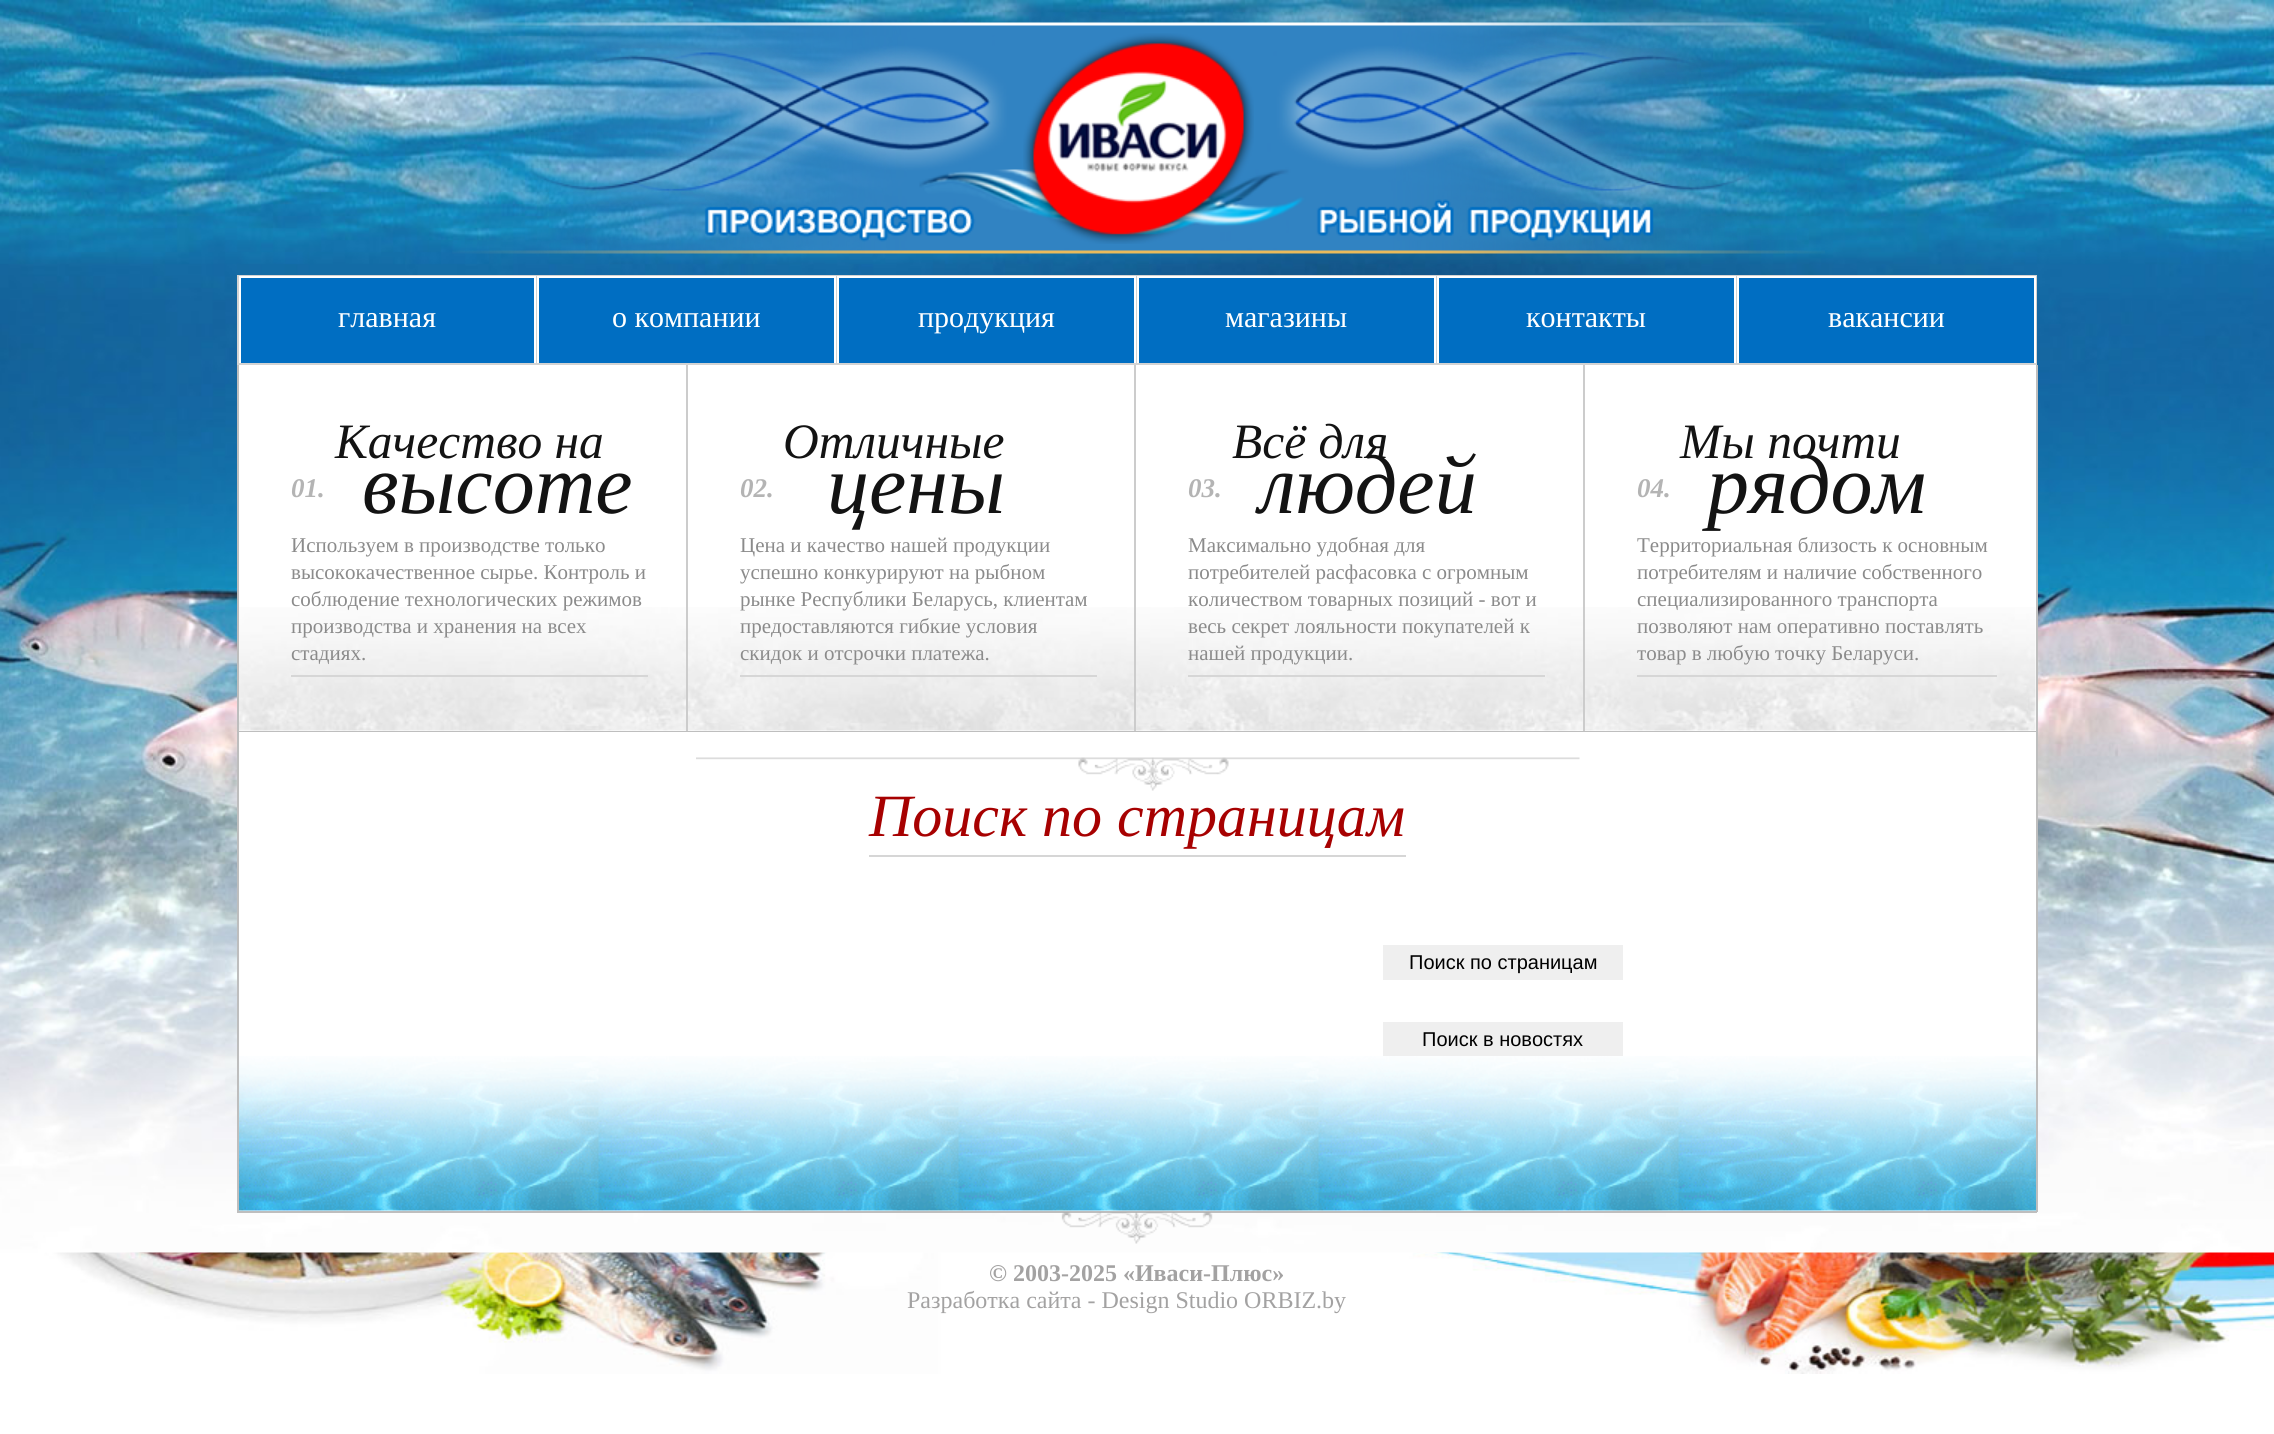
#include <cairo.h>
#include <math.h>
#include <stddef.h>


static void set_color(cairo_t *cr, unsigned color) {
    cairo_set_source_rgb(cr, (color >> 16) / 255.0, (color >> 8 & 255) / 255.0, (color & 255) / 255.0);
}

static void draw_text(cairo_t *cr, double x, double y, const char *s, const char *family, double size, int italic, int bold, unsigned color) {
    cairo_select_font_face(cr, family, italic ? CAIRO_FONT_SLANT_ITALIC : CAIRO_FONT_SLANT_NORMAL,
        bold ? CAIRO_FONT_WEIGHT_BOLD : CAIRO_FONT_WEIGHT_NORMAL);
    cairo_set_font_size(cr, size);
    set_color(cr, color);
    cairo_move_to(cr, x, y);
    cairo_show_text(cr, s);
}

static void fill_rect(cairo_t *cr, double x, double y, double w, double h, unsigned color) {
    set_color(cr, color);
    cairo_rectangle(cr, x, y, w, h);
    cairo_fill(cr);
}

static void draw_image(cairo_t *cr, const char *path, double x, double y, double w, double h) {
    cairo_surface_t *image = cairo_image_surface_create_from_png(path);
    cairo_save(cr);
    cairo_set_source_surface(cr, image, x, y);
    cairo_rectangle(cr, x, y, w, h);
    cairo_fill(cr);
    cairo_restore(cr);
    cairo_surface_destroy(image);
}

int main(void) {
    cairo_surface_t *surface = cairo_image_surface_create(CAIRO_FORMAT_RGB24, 2274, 1434);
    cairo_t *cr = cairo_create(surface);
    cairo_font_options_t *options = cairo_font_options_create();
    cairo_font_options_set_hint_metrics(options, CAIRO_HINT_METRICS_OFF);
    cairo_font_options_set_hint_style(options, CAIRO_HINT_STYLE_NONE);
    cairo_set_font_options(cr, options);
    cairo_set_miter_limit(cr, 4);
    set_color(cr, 0xFFFFFF);
    cairo_paint(cr);
    draw_image(cr, "assets/img1.png", 0, 1252, 2274, 122);
    draw_image(cr, "assets/img2.png", 0, 0, 2274, 1253);
    draw_image(cr, "assets/img3.png", 452, 22, 1373, 232);
    draw_image(cr, "assets/img4.png", 1023, 33, 231, 211);
    cairo_rectangle(cr, 238, 276, 1798, 88);
    set_color(cr, 0xD3D3D3);
    cairo_stroke(cr);
    fill_rect(cr, 241, 278, 293, 85, 0x006EC2);
    fill_rect(cr, 239, 276, 297, 2, 0xFFFFFF);
    fill_rect(cr, 534, 276, 2, 87, 0xFFFFFF);
    fill_rect(cr, 239, 276, 2, 87, 0xFFFFFF);
    draw_text(cr, 338, 327, "главная", "Liberation Serif", 30, 0, 0, 0xFFFFFF);
    fill_rect(cr, 536, 276, 1, 87, 0xD3D3D3);
    fill_rect(cr, 539, 278, 295, 85, 0x006EC2);
    fill_rect(cr, 537, 276, 299, 2, 0xFFFFFF);
    fill_rect(cr, 834, 276, 2, 87, 0xFFFFFF);
    fill_rect(cr, 537, 276, 2, 87, 0xFFFFFF);
    draw_text(cr, 612, 327, "о компании", "Liberation Serif", 30, 0, 0, 0xFFFFFF);
    fill_rect(cr, 836, 276, 1, 87, 0xD3D3D3);
    fill_rect(cr, 839, 278, 295, 85, 0x006EC2);
    fill_rect(cr, 837, 276, 299, 2, 0xFFFFFF);
    fill_rect(cr, 1134, 276, 2, 87, 0xFFFFFF);
    fill_rect(cr, 837, 276, 2, 87, 0xFFFFFF);
    draw_text(cr, 918, 327, "продукция", "Liberation Serif", 30, 0, 0, 0xFFFFFF);
    fill_rect(cr, 1136, 276, 1, 87, 0xD3D3D3);
    fill_rect(cr, 1139, 278, 295, 85, 0x006EC2);
    fill_rect(cr, 1137, 276, 299, 2, 0xFFFFFF);
    fill_rect(cr, 1434, 276, 2, 87, 0xFFFFFF);
    fill_rect(cr, 1137, 276, 2, 87, 0xFFFFFF);
    draw_text(cr, 1225, 327, "магазины", "Liberation Serif", 30, 0, 0, 0xFFFFFF);
    fill_rect(cr, 1436, 276, 1, 87, 0xD3D3D3);
    fill_rect(cr, 1439, 278, 295, 85, 0x006EC2);
    fill_rect(cr, 1437, 276, 299, 2, 0xFFFFFF);
    fill_rect(cr, 1734, 276, 2, 87, 0xFFFFFF);
    fill_rect(cr, 1437, 276, 2, 87, 0xFFFFFF);
    draw_text(cr, 1526, 327, "контакты", "Liberation Serif", 30, 0, 0, 0xFFFFFF);
    fill_rect(cr, 1736, 276, 1, 87, 0xD3D3D3);
    fill_rect(cr, 1739, 278, 295, 85, 0x006EC2);
    fill_rect(cr, 1737, 276, 299, 2, 0xFFFFFF);
    fill_rect(cr, 2034, 276, 2, 87, 0xFFFFFF);
    fill_rect(cr, 1737, 276, 2, 87, 0xFFFFFF);
    draw_text(cr, 1828, 327, "вакансии", "Liberation Serif", 30, 0, 0, 0xFFFFFF);
    fill_rect(cr, 239, 365, 1797, 366, 0xFFFFFF);
    draw_image(cr, "assets/img5.png", 239, 607, 1797, 124);
    fill_rect(cr, 2036, 365, 2, 847, 0xBEBEBE);
    fill_rect(cr, 237, 731, 1800, 1, 0xBEBEBE);
    fill_rect(cr, 237, 365, 2, 367, 0xBEBEBE);
    fill_rect(cr, 686, 365, 2, 366, 0xCCCCCC);
    draw_text(cr, 291, 497, "01.", "Liberation Serif", 27, 1, 1, 0xB4B4B4);
    draw_text(cr, 335, 458, "Качество на", "Liberation Serif", 49.5, 1, 0, 0x131313);
    draw_text(cr, 362, 513, "высоте", "Liberation Serif", 84, 1, 0, 0x131313);
    fill_rect(cr, 291, 675, 357, 2, 0xD6D6D6);
    draw_text(cr, 291, 552, "Используем в производстве только", "Liberation Serif", 21, 0, 0, 0x8B8B8B);
    draw_text(cr, 291, 579, "высококачественное сырье. Контроль и", "Liberation Serif", 21, 0, 0, 0x8B8B8B);
    draw_text(cr, 291, 606, "соблюдение технологических режимов", "Liberation Serif", 21, 0, 0, 0x8B8B8B);
    draw_text(cr, 291, 633, "производства и хранения на всех", "Liberation Serif", 21, 0, 0, 0x8B8B8B);
    draw_text(cr, 291, 660, "стадиях.", "Liberation Serif", 21, 0, 0, 0x8B8B8B);
    fill_rect(cr, 1134, 365, 2, 366, 0xCCCCCC);
    draw_text(cr, 740, 497, "02.", "Liberation Serif", 27, 1, 1, 0xB4B4B4);
    draw_text(cr, 783, 458, "Отличные", "Liberation Serif", 49.5, 1, 0, 0x131313);
    draw_text(cr, 827, 513, "цены", "Liberation Serif", 84, 1, 0, 0x131313);
    fill_rect(cr, 740, 675, 357, 2, 0xD6D6D6);
    draw_text(cr, 740, 552, "Цена и качество нашей продукции", "Liberation Serif", 21, 0, 0, 0x8B8B8B);
    draw_text(cr, 740, 579, "успешно конкурируют на рыбном", "Liberation Serif", 21, 0, 0, 0x8B8B8B);
    draw_text(cr, 740, 606, "рынке Республики Беларусь, клиентам", "Liberation Serif", 21, 0, 0, 0x8B8B8B);
    draw_text(cr, 740, 633, "предоставляются гибкие условия", "Liberation Serif", 21, 0, 0, 0x8B8B8B);
    draw_text(cr, 740, 660, "скидок и отсрочки платежа.", "Liberation Serif", 21, 0, 0, 0x8B8B8B);
    fill_rect(cr, 1583, 365, 2, 366, 0xCCCCCC);
    draw_text(cr, 1188, 497, "03.", "Liberation Serif", 27, 1, 1, 0xB4B4B4);
    draw_text(cr, 1232, 458, "Всё для", "Liberation Serif", 49.5, 1, 0, 0x131313);
    draw_text(cr, 1259, 513, "людей", "Liberation Serif", 84, 1, 0, 0x131313);
    fill_rect(cr, 1188, 675, 357, 2, 0xD6D6D6);
    draw_text(cr, 1188, 552, "Максимально удобная для", "Liberation Serif", 21, 0, 0, 0x8B8B8B);
    draw_text(cr, 1188, 579, "потребителей расфасовка с огромным", "Liberation Serif", 21, 0, 0, 0x8B8B8B);
    draw_text(cr, 1188, 606, "количеством товарных позиций - вот и", "Liberation Serif", 21, 0, 0, 0x8B8B8B);
    draw_text(cr, 1188, 633, "весь секрет лояльности покупателей к", "Liberation Serif", 21, 0, 0, 0x8B8B8B);
    draw_text(cr, 1188, 660, "нашей продукции.", "Liberation Serif", 21, 0, 0, 0x8B8B8B);
    draw_text(cr, 1637, 497, "04.", "Liberation Serif", 27, 1, 1, 0xB4B4B4);
    draw_text(cr, 1680, 458, "Мы почти", "Liberation Serif", 49.5, 1, 0, 0x131313);
    draw_text(cr, 1707, 513, "рядом", "Liberation Serif", 84, 1, 0, 0x131313);
    fill_rect(cr, 1637, 675, 360, 2, 0xD6D6D6);
    draw_text(cr, 1637, 552, "Территориальная близость к основным", "Liberation Serif", 21, 0, 0, 0x8B8B8B);
    draw_text(cr, 1637, 579, "потребителям и наличие собственного", "Liberation Serif", 21, 0, 0, 0x8B8B8B);
    draw_text(cr, 1637, 606, "специализированного транспорта", "Liberation Serif", 21, 0, 0, 0x8B8B8B);
    draw_text(cr, 1637, 633, "позволяют нам оперативно поставлять", "Liberation Serif", 21, 0, 0, 0x8B8B8B);
    draw_text(cr, 1637, 660, "товар в любую точку Беларуси.", "Liberation Serif", 21, 0, 0, 0x8B8B8B);
    fill_rect(cr, 239, 732, 1797, 479, 0xFFFFFF);
    draw_image(cr, "assets/img6.png", 239, 1056, 1797, 155);
    fill_rect(cr, 237, 1211, 1800, 2, 0xBEBEBE);
    fill_rect(cr, 237, 732, 2, 480, 0xBEBEBE);
    draw_image(cr, "assets/img7.png", 696, 757, 884, 34);
    fill_rect(cr, 869, 855, 537, 2, 0xD6D6D6);
    draw_text(cr, 869, 836, "Поиск по страницам", "Liberation Serif", 60, 1, 0, 0xA70101);
    fill_rect(cr, 1383, 945, 240, 35, 0xEFEFEF);
    draw_text(cr, 1409, 969, "Поиск по страницам", "Liberation Sans", 20, 0, 0, 0x000000);
    fill_rect(cr, 1383, 1022, 240, 34, 0xEFEFEF);
    draw_text(cr, 1422, 1046, "Поиск в новостях", "Liberation Sans", 20, 0, 0, 0x000000);
    draw_image(cr, "assets/img8.png", 1061, 1212, 152, 32);
    draw_text(cr, 989, 1281, "© 2003-2025 «Иваси-Плюс»", "Liberation Serif", 24, 0, 1, 0xA3A2A2);
    draw_text(cr, 907, 1308, "Разработка сайта - Design Studio ORBIZ.by", "Liberation Serif", 24, 0, 0, 0xA3A2A2);
    cairo_surface_write_to_png(surface, "output.png");
    cairo_font_options_destroy(options);
    cairo_destroy(cr);
    cairo_surface_destroy(surface);
    return 0;
}
